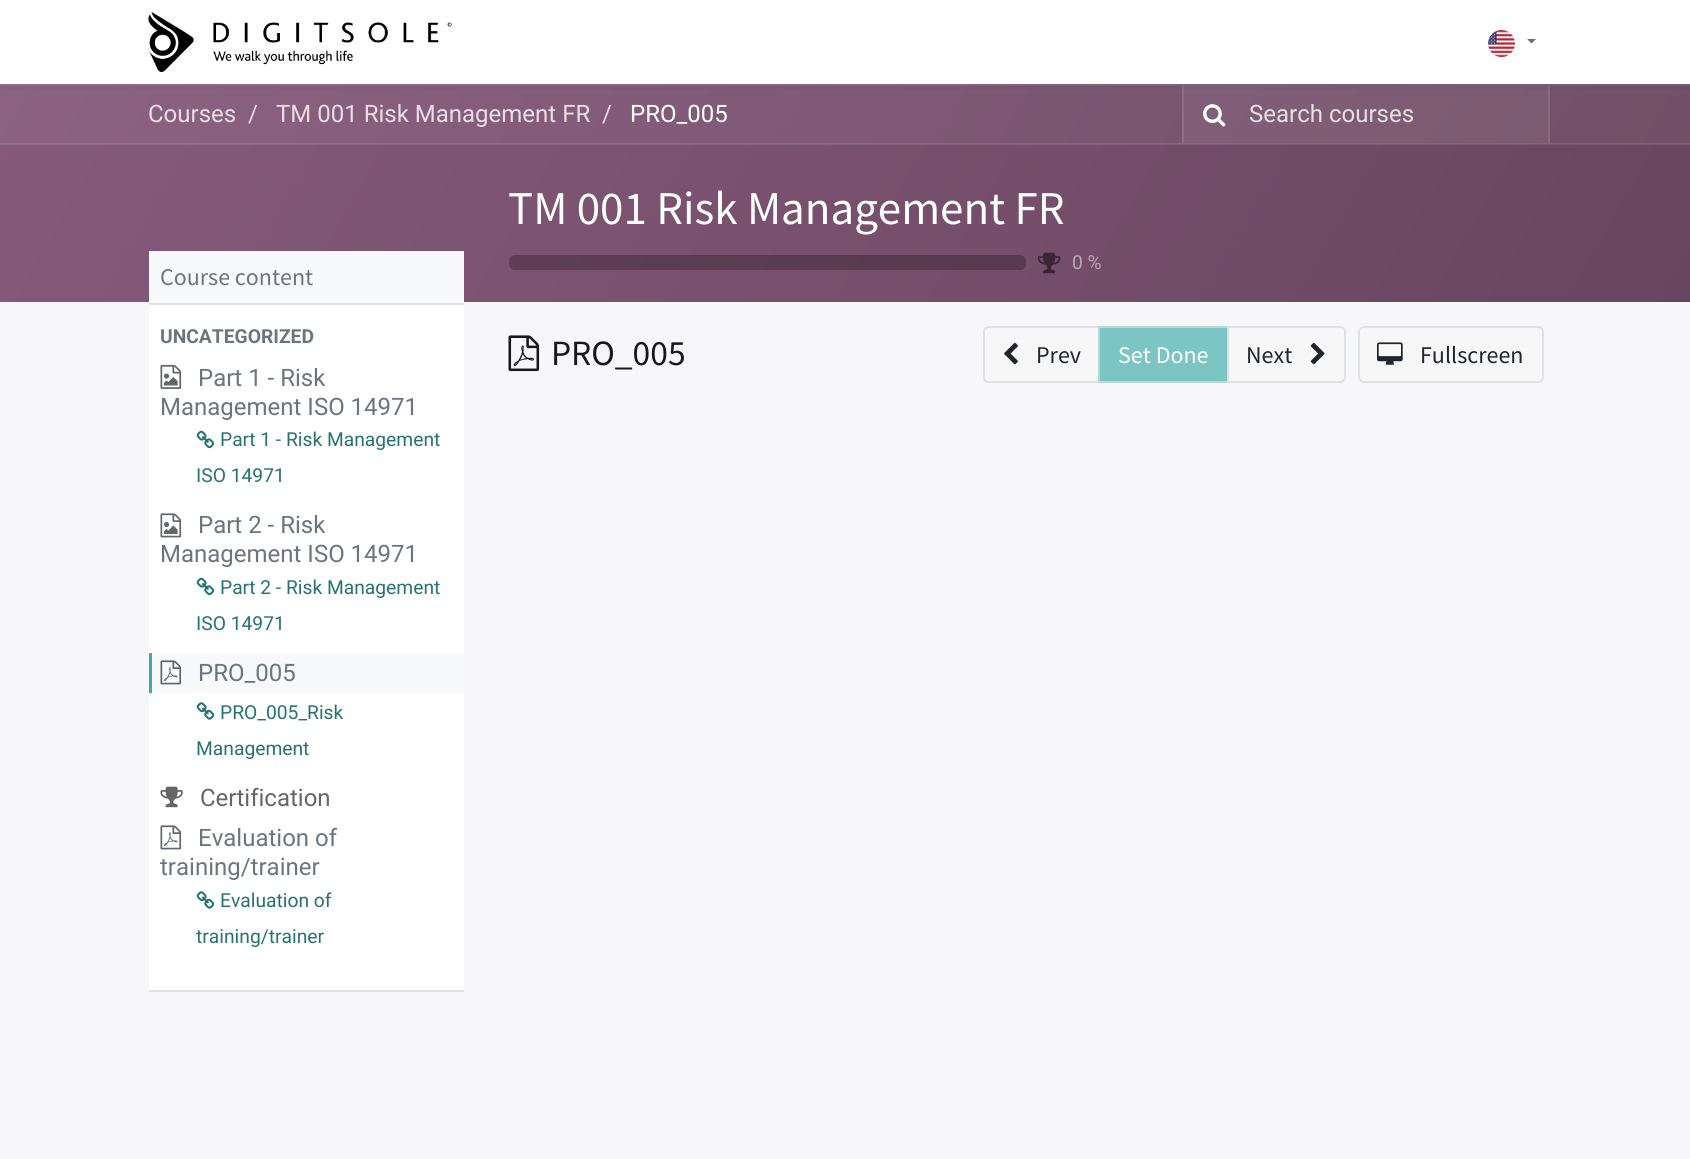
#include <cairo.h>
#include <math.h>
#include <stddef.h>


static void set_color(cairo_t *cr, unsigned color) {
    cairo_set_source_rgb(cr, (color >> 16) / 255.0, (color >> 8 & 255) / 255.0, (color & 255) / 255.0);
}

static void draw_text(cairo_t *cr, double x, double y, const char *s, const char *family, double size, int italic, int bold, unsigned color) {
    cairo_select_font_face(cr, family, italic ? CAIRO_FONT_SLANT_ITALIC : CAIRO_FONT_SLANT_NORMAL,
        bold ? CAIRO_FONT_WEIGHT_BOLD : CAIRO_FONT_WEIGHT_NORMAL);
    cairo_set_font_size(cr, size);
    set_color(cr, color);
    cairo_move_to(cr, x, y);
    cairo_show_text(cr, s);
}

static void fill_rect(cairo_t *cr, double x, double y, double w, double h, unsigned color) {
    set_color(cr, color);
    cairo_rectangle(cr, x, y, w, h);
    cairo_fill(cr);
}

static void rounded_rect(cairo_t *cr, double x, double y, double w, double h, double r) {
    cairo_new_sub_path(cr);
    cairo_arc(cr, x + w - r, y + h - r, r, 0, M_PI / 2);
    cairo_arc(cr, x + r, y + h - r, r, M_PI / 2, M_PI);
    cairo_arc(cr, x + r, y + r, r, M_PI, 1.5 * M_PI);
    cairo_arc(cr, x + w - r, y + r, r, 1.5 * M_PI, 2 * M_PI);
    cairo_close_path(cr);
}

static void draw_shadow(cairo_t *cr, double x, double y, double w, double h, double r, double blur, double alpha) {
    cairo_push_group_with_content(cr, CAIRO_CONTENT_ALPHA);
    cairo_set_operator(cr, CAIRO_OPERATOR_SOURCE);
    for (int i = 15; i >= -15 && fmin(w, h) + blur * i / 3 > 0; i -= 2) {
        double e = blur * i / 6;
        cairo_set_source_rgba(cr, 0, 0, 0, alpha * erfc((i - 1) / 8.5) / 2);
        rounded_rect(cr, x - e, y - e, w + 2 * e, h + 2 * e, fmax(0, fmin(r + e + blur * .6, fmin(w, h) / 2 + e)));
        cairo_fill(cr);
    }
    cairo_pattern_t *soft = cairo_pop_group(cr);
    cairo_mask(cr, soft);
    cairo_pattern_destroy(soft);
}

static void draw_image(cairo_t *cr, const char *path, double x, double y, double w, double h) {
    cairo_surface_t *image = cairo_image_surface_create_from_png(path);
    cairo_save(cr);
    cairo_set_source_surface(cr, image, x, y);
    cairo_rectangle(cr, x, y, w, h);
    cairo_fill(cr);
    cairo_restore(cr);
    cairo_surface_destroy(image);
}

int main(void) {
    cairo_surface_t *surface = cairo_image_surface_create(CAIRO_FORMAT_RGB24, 1690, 1159);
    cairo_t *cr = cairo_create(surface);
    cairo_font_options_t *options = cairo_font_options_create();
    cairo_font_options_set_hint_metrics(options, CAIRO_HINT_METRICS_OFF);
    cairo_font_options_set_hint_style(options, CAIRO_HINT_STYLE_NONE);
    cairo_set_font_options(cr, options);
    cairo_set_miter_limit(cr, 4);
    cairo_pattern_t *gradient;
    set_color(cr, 0xF7F7FA);
    cairo_paint(cr);
    gradient = cairo_pattern_create_linear(164, -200, 1526, 586);
    cairo_pattern_add_color_stop_rgba(gradient, 0, 0.553, 0.384, 0.51, 1);
    cairo_pattern_add_color_stop_rgba(gradient, 1, 0.439, 0.31, 0.404, 1);
    cairo_set_source(cr, gradient);
    cairo_pattern_destroy(gradient);
    cairo_rectangle(cr, 0, 86, 1690, 57);
    cairo_fill(cr);
    gradient = cairo_pattern_create_linear(164, -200, 1526, 586);
    cairo_pattern_add_color_stop_rgba(gradient, 0, 0.576, 0.416, 0.533, 1);
    cairo_pattern_add_color_stop_rgba(gradient, 1, 0.467, 0.345, 0.435, 1);
    cairo_set_source(cr, gradient);
    cairo_pattern_destroy(gradient);
    cairo_rectangle(cr, 1184, 86, 364, 57);
    cairo_fill(cr);
    gradient = cairo_pattern_create_linear(164, -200, 1526, 586);
    cairo_pattern_add_color_stop_rgba(gradient, 0, 0.596, 0.447, 0.561, 1);
    cairo_pattern_add_color_stop_rgba(gradient, 1, 0.494, 0.38, 0.463, 1);
    cairo_set_source(cr, gradient);
    cairo_pattern_destroy(gradient);
    cairo_rectangle(cr, 0, 84, 1690, 2);
    cairo_fill(cr);
    fill_rect(cr, 1548, 86, 2, 57, 0x886B80);
    fill_rect(cr, 1182, 86, 2, 57, 0x8D6E85);
    set_color(cr, 0x000000);
    draw_shadow(cr, 0, 3, 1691, 84, 0, 3, 0.07);
    fill_rect(cr, 0, 0, 1690, 84, 0xFFFFFF);
    draw_image(cr, "assets/img1.png", 148, 12, 304, 60);
    draw_image(cr, "assets/img2.png", 1488, 30, 27, 27);
    set_color(cr, 0x7C6576);
    cairo_new_path(cr);
    cairo_move_to(cr, 1527, 39);
    cairo_line_to(cr, 1536, 39);
    cairo_line_to(cr, 1531.5, 43.5);
    cairo_close_path(cr);
    cairo_fill(cr);
    gradient = cairo_pattern_create_linear(164, -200, 1526, 586);
    cairo_pattern_add_color_stop_rgba(gradient, 0, 0.529, 0.353, 0.482, 1);
    cairo_pattern_add_color_stop_rgba(gradient, 1, 0.408, 0.275, 0.373, 1);
    cairo_set_source(cr, gradient);
    cairo_pattern_destroy(gradient);
    cairo_rectangle(cr, 0, 145, 1690, 157);
    cairo_fill(cr);
    gradient = cairo_pattern_create_linear(164, -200, 1526, 586);
    cairo_pattern_add_color_stop_rgba(gradient, 0, 0.576, 0.42, 0.533, 1);
    cairo_pattern_add_color_stop_rgba(gradient, 1, 0.467, 0.349, 0.435, 1);
    cairo_set_source(cr, gradient);
    cairo_pattern_destroy(gradient);
    cairo_rectangle(cr, 0, 144, 1690, 1);
    cairo_fill(cr);
    gradient = cairo_pattern_create_linear(164, -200, 1526, 586);
    cairo_pattern_add_color_stop_rgba(gradient, 0, 0.596, 0.447, 0.561, 1);
    cairo_pattern_add_color_stop_rgba(gradient, 1, 0.494, 0.38, 0.463, 1);
    cairo_set_source(cr, gradient);
    cairo_pattern_destroy(gradient);
    cairo_rectangle(cr, 0, 143, 1690, 1);
    cairo_fill(cr);
    draw_text(cr, 148, 122, "Courses", "Roboto", 24, 0, 0, 0xE8DFE5);
    draw_text(cr, 248, 122, "/", "Roboto", 24, 0, 0, 0xE8DFE5);
    draw_text(cr, 276, 122, "TM 001 Risk Management FR", "Roboto", 24, 0, 0, 0xE8DFE5);
    draw_text(cr, 602, 122, "/", "Roboto", 24, 0, 0, 0xE8DFE5);
    draw_text(cr, 630, 122, "PRO_005", "Roboto", 24, 0, 0, 0xFFFFFF);
    draw_image(cr, "assets/img3.png", 1203, 104, 23, 23);
    draw_text(cr, 1249, 122, "Search courses", "Roboto", 24, 0, 0, 0xE8DFE5);
    draw_text(cr, 508, 224, "TM 001 Risk Management FR", "Source Sans Pro", 47, 0, 0, 0xFFFFFF);
    cairo_set_source_rgba(cr, 0, 0, 0, 0.25);
    rounded_rect(cr, 509, 255, 517, 15, 6);
    cairo_fill(cr);
    draw_image(cr, "assets/img4.png", 1038, 252, 23, 22);
    draw_text(cr, 1072, 269, "0 %", "Roboto", 19.25, 0, 0, 0xB9A6B4);
    fill_rect(cr, 149, 305, 315, 685, 0xFFFFFF);
    fill_rect(cr, 149, 990, 315, 2, 0xDEE2E6);
    fill_rect(cr, 149, 251, 315, 51, 0xF8F9FA);
    fill_rect(cr, 149, 303, 315, 2, 0xDEE2E6);
    draw_text(cr, 160, 285, "Course content", "Source Sans Pro", 24, 0, 0, 0x6C757D);
    draw_text(cr, 160, 343, "UNCATEGORIZED", "Roboto", 19.25, 0, 1, 0x6C757D);
    draw_image(cr, "assets/img5.png", 160, 364, 22, 25);
    draw_text(cr, 198, 386, "Part 1 - Risk", "Roboto", 24, 0, 0, 0x6C757D);
    draw_text(cr, 160, 415, "Management ISO 14971", "Roboto", 24, 0, 0, 0x6C757D);
    draw_image(cr, "assets/img6.png", 196, 430, 19, 19);
    draw_text(cr, 220, 446, "Part 1 - Risk Management", "Roboto", 19.25, 0, 0, 0x267372);
    draw_text(cr, 196, 482, "ISO 14971", "Roboto", 19.25, 0, 0, 0x267372);
    draw_image(cr, "assets/img7.png", 160, 513, 22, 25);
    draw_text(cr, 198, 533, "Part 2 - Risk", "Roboto", 24, 0, 0, 0x6C757D);
    draw_text(cr, 160, 562, "Management ISO 14971", "Roboto", 24, 0, 0, 0x6C757D);
    draw_image(cr, "assets/img6.png", 196, 577, 19, 19);
    draw_text(cr, 220, 594, "Part 2 - Risk Management", "Roboto", 19.25, 0, 0, 0x267372);
    draw_text(cr, 196, 630, "ISO 14971", "Roboto", 19.25, 0, 0, 0x267372);
    fill_rect(cr, 152, 653, 312, 40, 0xF8F9FA);
    fill_rect(cr, 149, 653, 3, 40, 0x3AADAA);
    draw_image(cr, "assets/img8.png", 160, 660, 22, 25);
    draw_text(cr, 198, 681, "PRO_005", "Roboto", 24, 0, 0, 0x6C757D);
    draw_image(cr, "assets/img9.png", 196, 702, 19, 18);
    draw_text(cr, 220, 719, "PRO_005_Risk", "Roboto", 19.25, 0, 0, 0x267372);
    draw_text(cr, 196, 755, "Management", "Roboto", 19.25, 0, 0, 0x267372);
    draw_image(cr, "assets/img10.png", 160, 786, 23, 22);
    draw_text(cr, 200, 806, "Certification", "Roboto", 24, 0, 0, 0x646669);
    draw_image(cr, "assets/img11.png", 160, 825, 22, 25);
    draw_text(cr, 198, 846, "Evaluation of", "Roboto", 24, 0, 0, 0x6C757D);
    draw_text(cr, 160, 875, "training/trainer", "Roboto", 24, 0, 0, 0x6C757D);
    draw_image(cr, "assets/img9.png", 196, 891, 19, 18);
    draw_text(cr, 220, 907, "Evaluation of", "Roboto", 19.25, 0, 0, 0x267372);
    draw_text(cr, 196, 943, "training/trainer", "Roboto", 19.25, 0, 0, 0x267372);
    draw_image(cr, "assets/img12.png", 508, 335, 32, 37);
    draw_text(cr, 551, 365, "PRO_005", "Source Sans Pro", 35.5, 0, 0, 0x16181B);
    set_color(cr, 0xF7F7F7);
    cairo_new_path(cr);
    cairo_move_to(cr, 989, 327);
    cairo_line_to(cr, 1099, 327);
    cairo_line_to(cr, 1099, 382);
    cairo_line_to(cr, 989, 382);
    cairo_curve_to(cr, 986, 382, 984, 380, 984, 377);
    cairo_line_to(cr, 984, 332);
    cairo_curve_to(cr, 984, 329, 986, 327, 989, 327);
    cairo_close_path(cr);
    cairo_fill_preserve(cr);
    set_color(cr, 0xDEE2E6);
    cairo_stroke(cr);
    draw_image(cr, "assets/img13.png", 1004, 342, 14, 23);
    draw_text(cr, 1036, 363, "Prev", "Source Sans Pro", 24, 0, 0, 0x212529);
    cairo_set_source_rgba(cr, 0.227, 0.678, 0.667, 0.65);
    cairo_rectangle(cr, 1098, 326, 129, 57);
    cairo_fill(cr);
    cairo_rectangle(cr, 1099, 327, 129, 55);
    cairo_set_source_rgba(cr, 0.871, 0.886, 0.902, 0.65);
    cairo_stroke(cr);
    draw_text(cr, 1118, 363, "Set Done", "Source Sans Pro", 24, 0, 0, 0xFFFFFF);
    set_color(cr, 0xF7F7F7);
    cairo_new_path(cr);
    cairo_move_to(cr, 1228, 327);
    cairo_line_to(cr, 1340, 327);
    cairo_curve_to(cr, 1343, 327, 1345, 329, 1345, 332);
    cairo_line_to(cr, 1345, 377);
    cairo_curve_to(cr, 1345, 380, 1343, 382, 1340, 382);
    cairo_line_to(cr, 1228, 382);
    cairo_close_path(cr);
    cairo_fill_preserve(cr);
    set_color(cr, 0xDEE2E6);
    cairo_stroke(cr);
    draw_text(cr, 1246, 363, "Next", "Source Sans Pro", 24, 0, 0, 0x212529);
    draw_image(cr, "assets/img14.png", 1310, 342, 15, 23);
    set_color(cr, 0xF7F7F7);
    rounded_rect(cr, 1359, 327, 184, 55, 5);
    cairo_fill_preserve(cr);
    set_color(cr, 0xDEE2E6);
    cairo_stroke(cr);
    draw_image(cr, "assets/img15.png", 1377, 342, 26, 23);
    draw_text(cr, 1420, 363, "Fullscreen", "Source Sans Pro", 24, 0, 0, 0x212529);
    cairo_surface_write_to_png(surface, "output.png");
    cairo_font_options_destroy(options);
    cairo_destroy(cr);
    cairo_surface_destroy(surface);
    return 0;
}
